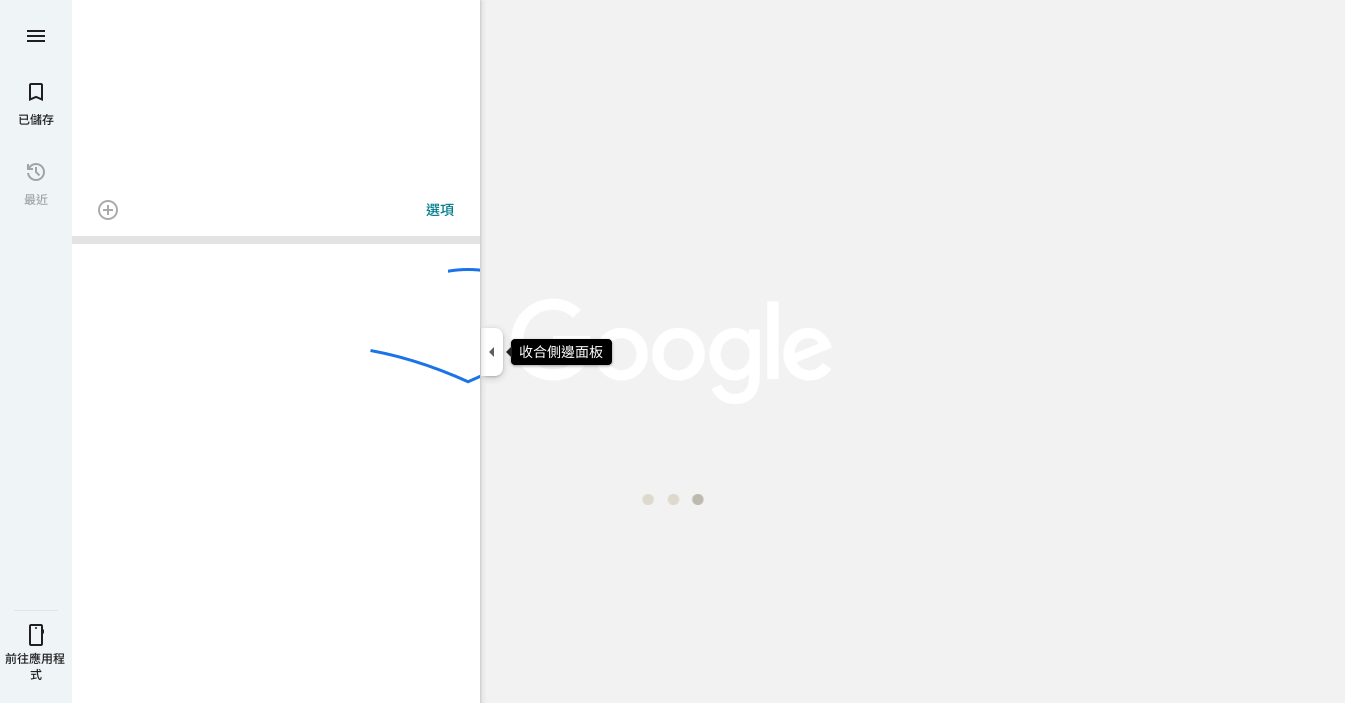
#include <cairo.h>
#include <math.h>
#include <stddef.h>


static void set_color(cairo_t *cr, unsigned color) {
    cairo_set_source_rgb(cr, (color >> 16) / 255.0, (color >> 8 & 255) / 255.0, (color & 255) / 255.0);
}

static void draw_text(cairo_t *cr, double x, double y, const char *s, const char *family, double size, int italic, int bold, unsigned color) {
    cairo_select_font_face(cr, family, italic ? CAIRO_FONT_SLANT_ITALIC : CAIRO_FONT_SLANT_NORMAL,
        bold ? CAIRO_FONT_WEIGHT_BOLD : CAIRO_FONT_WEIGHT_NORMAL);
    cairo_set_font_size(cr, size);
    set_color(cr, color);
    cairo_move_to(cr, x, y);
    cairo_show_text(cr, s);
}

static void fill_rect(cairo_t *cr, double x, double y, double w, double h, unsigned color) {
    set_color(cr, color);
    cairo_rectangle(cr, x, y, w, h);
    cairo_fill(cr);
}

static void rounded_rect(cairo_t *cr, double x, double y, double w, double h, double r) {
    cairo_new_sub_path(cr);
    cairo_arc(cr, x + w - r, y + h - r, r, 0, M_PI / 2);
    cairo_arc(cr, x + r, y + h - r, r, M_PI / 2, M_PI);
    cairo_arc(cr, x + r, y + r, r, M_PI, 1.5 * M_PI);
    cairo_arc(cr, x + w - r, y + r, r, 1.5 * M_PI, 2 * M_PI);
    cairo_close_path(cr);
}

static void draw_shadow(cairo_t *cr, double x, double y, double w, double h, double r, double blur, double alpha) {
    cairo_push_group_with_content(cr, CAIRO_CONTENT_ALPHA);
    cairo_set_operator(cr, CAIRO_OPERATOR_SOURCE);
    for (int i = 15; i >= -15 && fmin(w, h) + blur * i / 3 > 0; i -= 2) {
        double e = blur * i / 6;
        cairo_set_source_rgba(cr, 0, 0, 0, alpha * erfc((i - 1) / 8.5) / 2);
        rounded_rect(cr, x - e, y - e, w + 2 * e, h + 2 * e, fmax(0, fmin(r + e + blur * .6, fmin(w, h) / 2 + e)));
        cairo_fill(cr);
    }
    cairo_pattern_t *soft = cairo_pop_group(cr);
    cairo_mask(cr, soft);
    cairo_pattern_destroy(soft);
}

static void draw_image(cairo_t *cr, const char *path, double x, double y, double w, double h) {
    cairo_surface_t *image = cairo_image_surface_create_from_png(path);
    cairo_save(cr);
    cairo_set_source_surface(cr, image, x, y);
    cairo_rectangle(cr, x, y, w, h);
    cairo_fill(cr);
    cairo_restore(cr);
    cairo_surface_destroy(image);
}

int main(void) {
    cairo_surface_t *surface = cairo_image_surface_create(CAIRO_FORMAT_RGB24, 1345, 703);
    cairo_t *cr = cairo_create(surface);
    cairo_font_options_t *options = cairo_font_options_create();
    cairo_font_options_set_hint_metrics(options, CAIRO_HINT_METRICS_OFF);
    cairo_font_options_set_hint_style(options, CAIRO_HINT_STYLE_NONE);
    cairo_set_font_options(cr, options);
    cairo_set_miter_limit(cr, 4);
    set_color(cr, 0xF2F2F2);
    cairo_paint(cr);
    draw_image(cr, "assets/img6.png", 511, 298, 321, 106);
    set_color(cr, 0x3C4043);
    draw_shadow(cr, 478, 328, 27, 52, 10, 3, 0.15);
    draw_shadow(cr, 480, 329, 23, 48, 8, 1, 0.3);
    set_color(cr, 0xFFFFFF);
    cairo_new_path(cr);
    cairo_move_to(cr, 480, 328);
    cairo_line_to(cr, 495, 328);
    cairo_curve_to(cr, 499.5, 328, 503, 331.5, 503, 336);
    cairo_line_to(cr, 503, 368);
    cairo_curve_to(cr, 503, 372.5, 499.5, 376, 495, 376);
    cairo_line_to(cr, 480, 376);
    cairo_close_path(cr);
    cairo_fill(cr);
    fill_rect(cr, 480, 328, 1, 48, 0xE3E3E3);
    set_color(cr, 0x5E5E5E);
    cairo_new_path(cr);
    cairo_move_to(cr, 494, 357);
    cairo_line_to(cr, 489, 352);
    cairo_line_to(cr, 494, 347);
    cairo_close_path(cr);
    cairo_fill(cr);
    set_color(cr, 0x3C4043);
    draw_shadow(cr, 70, 0, 412, 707, 0, 3, 0.15);
    draw_shadow(cr, 72, 1, 408, 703, 0, 1, 0.3);
    fill_rect(cr, 0, 0, 72, 703, 0xEFF5F6);
    draw_image(cr, "assets/img1.png", 27, 30, 18, 12);
    draw_image(cr, "assets/img2.png", 29, 83, 14, 18);
    draw_text(cr, 18, 124, "已儲存", "Noto Sans TC Medium", 12, 0, 0, 0x1F1F1F);
    draw_image(cr, "assets/img3.png", 27, 163, 18, 18);
    draw_text(cr, 24, 204, "最近", "Noto Sans TC Medium", 12, 0, 0, 0xA0A4A4);
    fill_rect(cr, 14, 610, 44, 1, 0xE3E3E3);
    draw_image(cr, "assets/img4.png", 29, 624, 15, 22);
    draw_text(cr, 5, 663, "前往應用程", "Noto Sans TC Medium", 12, 0, 0, 0x1F1F1F);
    draw_text(cr, 30, 679, "式", "Noto Sans TC Medium", 12, 0, 0, 0x1F1F1F);
    fill_rect(cr, 72, 0, 408, 703, 0xFFFFFF);
    fill_rect(cr, 72, 236, 408, 8, 0xE3E3E3);
    draw_image(cr, "assets/img5.png", 98, 200, 20, 20);
    draw_text(cr, 426, 215, "選項", "Noto Sans TC Medium", 14, 0, 0, 0x007B8B);
    cairo_save(cr);
    cairo_rectangle(cr, 448, 268, 32, 435);
    cairo_clip(cr);
    cairo_new_path(cr);
    cairo_move_to(cr, 325, 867);
    cairo_curve_to(cr, 287, 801.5, 265.5, 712.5, 265.5, 619.5);
    cairo_curve_to(cr, 265.5, 526.5, 287, 437.5, 325, 372);
    cairo_curve_to(cr, 363, 306.5, 414.5, 269.5, 468, 269.5);
    cairo_curve_to(cr, 521.5, 269.5, 573, 306.5, 611, 372);
    cairo_curve_to(cr, 649, 437.5, 670.5, 526.5, 670.5, 619.5);
    cairo_curve_to(cr, 670.5, 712.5, 649, 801.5, 611, 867);
    set_color(cr, 0x1A73E8);
    cairo_set_line_width(cr, 3);
    cairo_stroke(cr);
    cairo_restore(cr);
    cairo_save(cr);
    cairo_rectangle(cr, 264, 268, 204, 435);
    cairo_clip(cr);
    cairo_new_path(cr);
    cairo_move_to(cr, 370.5, 350.5);
    cairo_curve_to(cr, 445, 364, 527, 404.5, 598, 464.5);
    cairo_curve_to(cr, 669.5, 524, 724, 597.5, 749.5, 669);
    cairo_curve_to(cr, 775.5, 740, 770.5, 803.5, 736, 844.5);
    cairo_curve_to(cr, 701.5, 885.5, 640, 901.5, 565.5, 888.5);
    set_color(cr, 0x1A73E8);
    cairo_set_line_width(cr, 3);
    cairo_stroke(cr);
    cairo_restore(cr);
    cairo_save(cr);
    cairo_rectangle(cr, 468, 268, 12, 435);
    cairo_clip(cr);
    cairo_new_path(cr);
    cairo_move_to(cr, 370.5, 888.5);
    cairo_curve_to(cr, 296, 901.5, 234.5, 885.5, 200, 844.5);
    cairo_curve_to(cr, 165.5, 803.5, 160.5, 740, 186.5, 669);
    cairo_curve_to(cr, 212, 597.5, 266.5, 524, 338, 464.5);
    cairo_curve_to(cr, 409, 404.5, 491, 364, 565.5, 350.5);
    set_color(cr, 0x1A73E8);
    cairo_set_line_width(cr, 3);
    cairo_stroke(cr);
    cairo_restore(cr);
    set_color(cr, 0x3C4043);
    draw_shadow(cr, 510, 339, 103, 28, 5, 1.5, 0.15);
    draw_shadow(cr, 511, 340, 101, 26, 4, 1, 0.3);
    set_color(cr, 0x000000);
    rounded_rect(cr, 511, 339, 101, 26, 4);
    cairo_fill(cr);
    set_color(cr, 0x1F1F1F);
    cairo_new_path(cr);
    cairo_move_to(cr, 512, 346);
    cairo_line_to(cr, 512, 358);
    cairo_line_to(cr, 506, 352);
    cairo_close_path(cr);
    cairo_fill(cr);
    draw_text(cr, 519, 357, "收合側邊面板", "Noto Sans TC", 14, 0, 0, 0xFFFFFF);
    draw_image(cr, "assets/img7.png", 642, 494, 62, 11);
    cairo_surface_write_to_png(surface, "output.png");
    cairo_font_options_destroy(options);
    cairo_destroy(cr);
    cairo_surface_destroy(surface);
    return 0;
}
